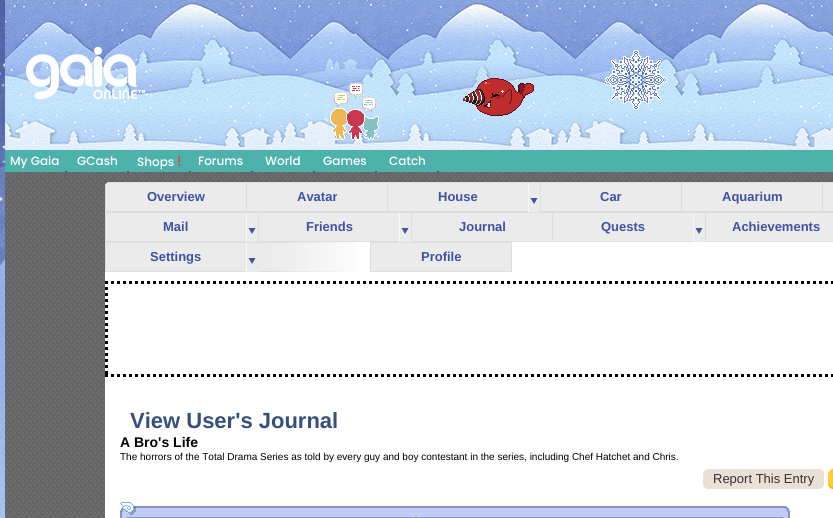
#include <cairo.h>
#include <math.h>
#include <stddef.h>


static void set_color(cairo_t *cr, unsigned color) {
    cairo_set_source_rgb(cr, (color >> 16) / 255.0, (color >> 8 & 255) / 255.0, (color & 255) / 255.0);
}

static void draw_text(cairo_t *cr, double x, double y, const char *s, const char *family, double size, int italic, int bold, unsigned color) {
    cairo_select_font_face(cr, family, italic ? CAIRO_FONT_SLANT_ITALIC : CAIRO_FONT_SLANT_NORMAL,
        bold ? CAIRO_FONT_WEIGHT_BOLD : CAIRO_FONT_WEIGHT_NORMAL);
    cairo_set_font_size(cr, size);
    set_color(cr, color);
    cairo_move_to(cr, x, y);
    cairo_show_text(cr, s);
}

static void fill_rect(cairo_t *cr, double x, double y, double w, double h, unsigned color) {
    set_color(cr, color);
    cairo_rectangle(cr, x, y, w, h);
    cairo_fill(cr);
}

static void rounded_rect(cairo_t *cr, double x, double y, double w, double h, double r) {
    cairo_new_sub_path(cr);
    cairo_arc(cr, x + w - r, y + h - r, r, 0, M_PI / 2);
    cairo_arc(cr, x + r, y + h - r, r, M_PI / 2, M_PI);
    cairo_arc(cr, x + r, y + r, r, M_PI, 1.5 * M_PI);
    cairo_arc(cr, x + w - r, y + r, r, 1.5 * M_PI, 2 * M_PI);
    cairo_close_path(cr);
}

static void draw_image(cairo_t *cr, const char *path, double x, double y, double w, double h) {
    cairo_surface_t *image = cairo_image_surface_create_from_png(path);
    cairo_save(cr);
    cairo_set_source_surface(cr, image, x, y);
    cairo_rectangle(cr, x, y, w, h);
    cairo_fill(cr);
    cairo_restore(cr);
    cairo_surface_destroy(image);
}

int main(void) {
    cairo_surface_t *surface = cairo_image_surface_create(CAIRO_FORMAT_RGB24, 833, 518);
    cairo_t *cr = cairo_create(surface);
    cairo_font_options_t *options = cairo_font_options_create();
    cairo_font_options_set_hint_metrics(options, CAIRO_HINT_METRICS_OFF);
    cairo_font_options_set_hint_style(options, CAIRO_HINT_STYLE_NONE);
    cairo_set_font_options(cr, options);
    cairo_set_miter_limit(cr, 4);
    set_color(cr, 0xFFFFFF);
    cairo_paint(cr);
    draw_image(cr, "assets/img1.png", 0, 0, 833, 518);
    draw_image(cr, "assets/img2.png", 5, 0, 828, 150);
    draw_image(cr, "assets/img3.png", 5, 0, 828, 150);
    draw_image(cr, "assets/img4.png", 26, 46, 119, 54);
    draw_image(cr, "assets/img5.png", 330, 83, 49, 57);
    draw_image(cr, "assets/img6.png", 463, 78, 71, 38);
    draw_image(cr, "assets/img7.png", 605, 50, 62, 60);
    fill_rect(cr, 5, 150, 828, 22, 0x4DB1AC);
    draw_text(cr, 10, 165, "My Gaia", "Poppins Medium", 12, 0, 0, 0xFFFFFF);
    draw_text(cr, 77, 165, "GCash", "Poppins Medium", 12, 0, 0, 0xFFFFFF);
    draw_text(cr, 137, 166, "Shops", "Poppins Medium", 12, 0, 0, 0xFFFFFF);
    draw_text(cr, 177, 166, "!", "Poppins Medium", 14, 0, 0, 0xFF3333);
    draw_text(cr, 198, 165, "Forums", "Poppins Medium", 12, 0, 0, 0xFFFFFF);
    draw_text(cr, 265, 165, "World", "Poppins Medium", 12, 0, 0, 0xFFFFFF);
    draw_text(cr, 323, 165, "Games", "Poppins Medium", 12, 0, 0, 0xFFFFFF);
    draw_text(cr, 389, 165, "Catch", "Poppins Medium", 12, 0, 0, 0xFFFFFF);
    fill_rect(cr, 65, 171, 2, 1, 0x265F62);
    fill_rect(cr, 127, 171, 2, 1, 0x265F62);
    fill_rect(cr, 189, 171, 2, 1, 0x265F62);
    fill_rect(cr, 251, 171, 2, 1, 0x265F62);
    fill_rect(cr, 313, 171, 2, 1, 0x265F62);
    fill_rect(cr, 375, 171, 2, 1, 0x265F62);
    fill_rect(cr, 437, 171, 2, 1, 0x265F62);
    draw_image(cr, "assets/img8.png", 5, 172, 828, 346);
    set_color(cr, 0xFFFFFF);
    rounded_rect(cr, 105, 182, 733, 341, 5);
    cairo_fill(cr);
    set_color(cr, 0xEBEBEB);
    cairo_new_path(cr);
    cairo_move_to(cr, 110, 182);
    cairo_line_to(cr, 247, 182);
    cairo_line_to(cr, 247, 212);
    cairo_line_to(cr, 105, 212);
    cairo_line_to(cr, 105, 187);
    cairo_curve_to(cr, 105, 184, 107, 182, 110, 182);
    cairo_close_path(cr);
    cairo_fill(cr);
    set_color(cr, 0xDCDEE3);
    cairo_new_path(cr);
    cairo_move_to(cr, 110, 182);
    cairo_line_to(cr, 107, 183);
    cairo_line_to(cr, 246, 183);
    cairo_line_to(cr, 246, 211);
    cairo_line_to(cr, 106, 211);
    cairo_line_to(cr, 106, 184);
    cairo_curve_to(cr, 105, 185, 105, 186, 105, 187);
    cairo_line_to(cr, 105, 212);
    cairo_line_to(cr, 247, 212);
    cairo_line_to(cr, 247, 182);
    cairo_close_path(cr);
    cairo_fill(cr);
    draw_text(cr, 147, 201, "Overview", "Liberation Sans", 13, 0, 1, 0x3E53A2);
    set_color(cr, 0xEBEBEB);
    cairo_rectangle(cr, 246.5, 182.5, 141, 29);
    cairo_fill_preserve(cr);
    set_color(cr, 0xDCDEE3);
    cairo_set_line_width(cr, 1);
    cairo_stroke(cr);
    draw_text(cr, 297, 201, "Avatar", "Liberation Sans", 13, 0, 1, 0x3E53A2);
    fill_rect(cr, 388, 183, 140, 28, 0xEBEBEB);
    cairo_rectangle(cr, 387.5, 182.5, 153, 29);
    set_color(cr, 0xDCDEE3);
    cairo_stroke(cr);
    draw_text(cr, 438, 201, "House", "Liberation Sans", 13, 0, 1, 0x3E53A2);
    draw_image(cr, "assets/img9.png", 528, 183, 12, 29);
    set_color(cr, 0xEBEBEB);
    cairo_rectangle(cr, 540.5, 182.5, 141, 29);
    cairo_fill_preserve(cr);
    set_color(cr, 0xDCDEE3);
    cairo_stroke(cr);
    draw_text(cr, 600, 201, "Car", "Liberation Sans", 13, 0, 1, 0x3E53A2);
    set_color(cr, 0xEBEBEB);
    cairo_rectangle(cr, 681.5, 182.5, 141, 29);
    cairo_fill_preserve(cr);
    set_color(cr, 0xDCDEE3);
    cairo_stroke(cr);
    draw_text(cr, 722, 201, "Aquarium", "Liberation Sans", 13, 0, 1, 0x3E53A2);
    set_color(cr, 0xEBEBEB);
    cairo_rectangle(cr, 822.5, 182.5, 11, 29);
    cairo_fill_preserve(cr);
    set_color(cr, 0xDCDEE3);
    cairo_stroke(cr);
    fill_rect(cr, 106, 213, 140, 28, 0xEBEBEB);
    cairo_rectangle(cr, 105.5, 212.5, 153, 29);
    set_color(cr, 0xDCDEE3);
    cairo_stroke(cr);
    draw_text(cr, 163, 231, "Mail", "Liberation Sans", 13, 0, 1, 0x3E53A2);
    draw_image(cr, "assets/img9.png", 246, 213, 12, 29);
    fill_rect(cr, 259, 213, 140, 28, 0xEBEBEB);
    cairo_rectangle(cr, 258.5, 212.5, 153, 29);
    set_color(cr, 0xDCDEE3);
    cairo_stroke(cr);
    draw_text(cr, 306, 231, "Friends", "Liberation Sans", 13, 0, 1, 0x3E53A2);
    draw_image(cr, "assets/img9.png", 399, 213, 12, 29);
    set_color(cr, 0xEBEBEB);
    cairo_rectangle(cr, 411.5, 212.5, 141, 29);
    cairo_fill_preserve(cr);
    set_color(cr, 0xDCDEE3);
    cairo_stroke(cr);
    draw_text(cr, 459, 231, "Journal", "Liberation Sans", 13, 0, 1, 0x3E53A2);
    fill_rect(cr, 553, 213, 140, 28, 0xEBEBEB);
    cairo_rectangle(cr, 552.5, 212.5, 153, 29);
    set_color(cr, 0xDCDEE3);
    cairo_stroke(cr);
    draw_text(cr, 601, 231, "Quests", "Liberation Sans", 13, 0, 1, 0x3E53A2);
    draw_image(cr, "assets/img9.png", 693, 213, 12, 29);
    set_color(cr, 0xEBEBEB);
    cairo_rectangle(cr, 705.5, 212.5, 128, 29);
    cairo_fill_preserve(cr);
    set_color(cr, 0xDCDEE3);
    cairo_stroke(cr);
    draw_text(cr, 732, 231, "Achievements", "Liberation Sans", 13, 0, 1, 0x3E53A2);
    fill_rect(cr, 106, 243, 140, 28, 0xEBEBEB);
    fill_rect(cr, 105, 242, 153, 1, 0xDCDEE3);
    fill_rect(cr, 105, 271, 141, 1, 0xDCDEE3);
    fill_rect(cr, 105, 242, 1, 30, 0xDCDEE3);
    draw_text(cr, 150, 261, "Settings", "Liberation Sans", 13, 0, 1, 0x3E53A2);
    draw_image(cr, "assets/img9.png", 246, 243, 12, 29);
    draw_image(cr, "assets/img10.png", 258, 242, 101, 30);
    set_color(cr, 0xEBEBEB);
    cairo_rectangle(cr, 370.5, 242.5, 141, 29);
    cairo_fill_preserve(cr);
    set_color(cr, 0xDCDEE3);
    cairo_stroke(cr);
    draw_text(cr, 421, 261, "Profile", "Liberation Sans", 13, 0, 1, 0x3E53A2);
    cairo_new_path(cr);
    cairo_move_to(cr, 105, 282.5);
    cairo_line_to(cr, 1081, 282.5);
    set_color(cr, 0x000000);
    cairo_set_line_width(cr, 3);
    cairo_set_dash(cr, (double[]){3, 3}, 2, 0);
    cairo_stroke(cr);
    cairo_new_path(cr);
    cairo_move_to(cr, 105, 375.5);
    cairo_line_to(cr, 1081, 375.5);
    cairo_stroke(cr);
    cairo_new_path(cr);
    cairo_move_to(cr, 106.5, 281);
    cairo_line_to(cr, 106.5, 377);
    cairo_stroke(cr);
    draw_text(cr, 130, 428, "View User's Journal", "Liberation Sans", 22, 0, 1, 0x355080);
    draw_text(cr, 120, 447, "A Bro's Life", "Liberation Sans", 14, 0, 1, 0x000000);
    draw_text(cr, 120, 460, "The horrors of the Total Drama Series as told by every guy and boy contestant in the series, including Chef Hatchet and Chris.", "Liberation Sans", 10, 0, 0, 0x000000);
    draw_image(cr, "assets/img11.png", 802, 469, 22, 20);
    draw_image(cr, "assets/img12.png", 703, 469, 99, 20);
    draw_text(cr, 713, 483, "Report This Entry", "Liberation Sans", 13, 0, 0, 0x333333);
    draw_image(cr, "assets/img13.png", 828, 469, 5, 20);
    draw_image(cr, "assets/img14.png", 120, 502, 17, 16);
    draw_image(cr, "assets/img15.png", 137, 506, 636, 12);
    draw_image(cr, "assets/img16.png", 773, 506, 17, 12);
    rounded_rect(cr, 405.5, 517.5, 21, 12, 10.5);
    set_color(cr, 0xDADEEC);
    cairo_set_line_width(cr, 1);
    cairo_set_dash(cr, NULL, 0, 0);
    cairo_stroke(cr);
    rounded_rect(cr, 405.5, 517.5, 21, 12, 10.5);
    set_color(cr, 0x888888);
    cairo_stroke(cr);
    cairo_surface_write_to_png(surface, "output.png");
    cairo_font_options_destroy(options);
    cairo_destroy(cr);
    cairo_surface_destroy(surface);
    return 0;
}
